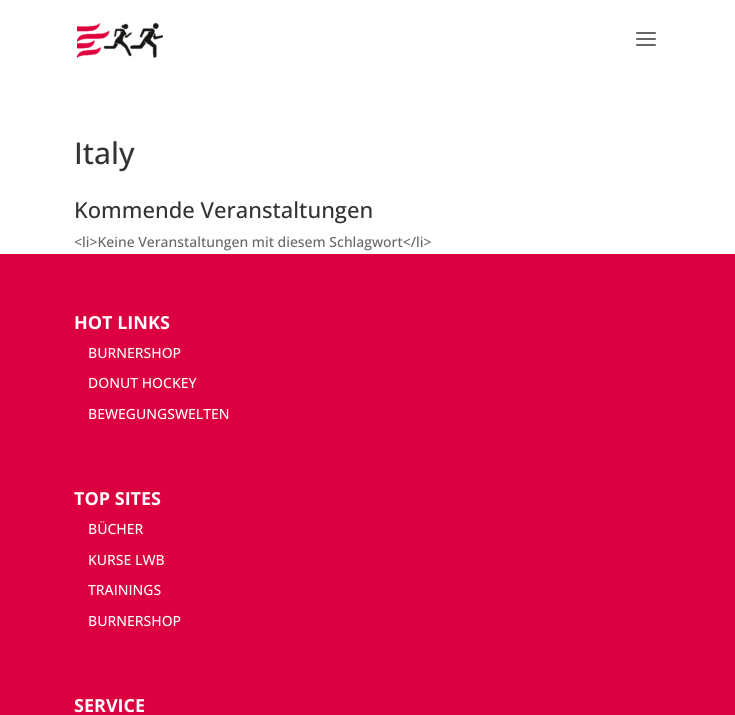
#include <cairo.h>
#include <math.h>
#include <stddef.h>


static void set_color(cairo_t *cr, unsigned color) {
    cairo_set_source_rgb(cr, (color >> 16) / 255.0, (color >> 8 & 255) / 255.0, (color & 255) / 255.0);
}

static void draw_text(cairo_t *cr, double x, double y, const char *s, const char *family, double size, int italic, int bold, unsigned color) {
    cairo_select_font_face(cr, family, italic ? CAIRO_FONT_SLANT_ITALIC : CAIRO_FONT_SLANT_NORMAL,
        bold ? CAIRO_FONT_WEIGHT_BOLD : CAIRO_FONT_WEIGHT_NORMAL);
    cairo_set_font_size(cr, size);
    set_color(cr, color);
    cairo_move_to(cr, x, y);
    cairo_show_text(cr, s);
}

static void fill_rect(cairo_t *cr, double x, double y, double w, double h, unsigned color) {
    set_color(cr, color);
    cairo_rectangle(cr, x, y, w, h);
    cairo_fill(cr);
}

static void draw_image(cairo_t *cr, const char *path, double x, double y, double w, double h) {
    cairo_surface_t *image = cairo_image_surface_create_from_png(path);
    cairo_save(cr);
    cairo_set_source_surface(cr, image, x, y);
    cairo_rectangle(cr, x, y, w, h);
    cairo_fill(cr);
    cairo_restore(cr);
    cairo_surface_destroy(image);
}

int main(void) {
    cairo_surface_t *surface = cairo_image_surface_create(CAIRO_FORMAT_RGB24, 735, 715);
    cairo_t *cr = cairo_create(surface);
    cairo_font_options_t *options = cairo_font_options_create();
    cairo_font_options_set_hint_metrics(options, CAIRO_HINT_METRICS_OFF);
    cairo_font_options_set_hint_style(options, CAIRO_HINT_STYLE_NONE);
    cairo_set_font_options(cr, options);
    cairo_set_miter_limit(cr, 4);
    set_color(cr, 0xFFFFFF);
    cairo_paint(cr);
    draw_image(cr, "assets/img1.png", 77, 23, 86, 35);
    draw_image(cr, "assets/img2.png", 636, 32, 20, 14);
    draw_text(cr, 74, 164, "Italy", "Open Sans Medium", 30, 0, 0, 0x333333);
    draw_text(cr, 74, 218, "Kommende Veranstaltungen", "Open Sans Medium", 22, 0, 0, 0x333333);
    draw_text(cr, 74, 247, "<li>Keine Veranstaltungen mit diesem Schlagwort</li>", "Open Sans Medium", 14, 0, 0, 0x666666);
    fill_rect(cr, 0, 254, 735, 461, 0xDC0041);
    draw_text(cr, 74, 329, "HOT LINKS", "Open Sans", 18, 0, 1, 0xFFFFFF);
    draw_text(cr, 88, 358, "BURNERSHOP", "Open Sans Medium", 14, 0, 0, 0xFFFFFF);
    draw_text(cr, 88, 388, "DONUT HOCKEY", "Open Sans Medium", 14, 0, 0, 0xFFFFFF);
    draw_text(cr, 88, 419, "BEWEGUNGSWELTEN", "Open Sans Medium", 14, 0, 0, 0xFFFFFF);
    draw_text(cr, 74, 505, "TOP SITES", "Open Sans", 18, 0, 1, 0xFFFFFF);
    draw_text(cr, 88, 534, "BÜCHER", "Open Sans Medium", 14, 0, 0, 0xFFFFFF);
    draw_text(cr, 88, 565, "KURSE LWB", "Open Sans Medium", 14, 0, 0, 0xFFFFFF);
    draw_text(cr, 88, 595, "TRAININGS", "Open Sans Medium", 14, 0, 0, 0xFFFFFF);
    draw_text(cr, 88, 626, "BURNERSHOP", "Open Sans Medium", 14, 0, 0, 0xFFFFFF);
    draw_text(cr, 74, 712, "SERVICE", "Open Sans", 18, 0, 1, 0xFFFFFF);
    cairo_surface_write_to_png(surface, "output.png");
    cairo_font_options_destroy(options);
    cairo_destroy(cr);
    cairo_surface_destroy(surface);
    return 0;
}
